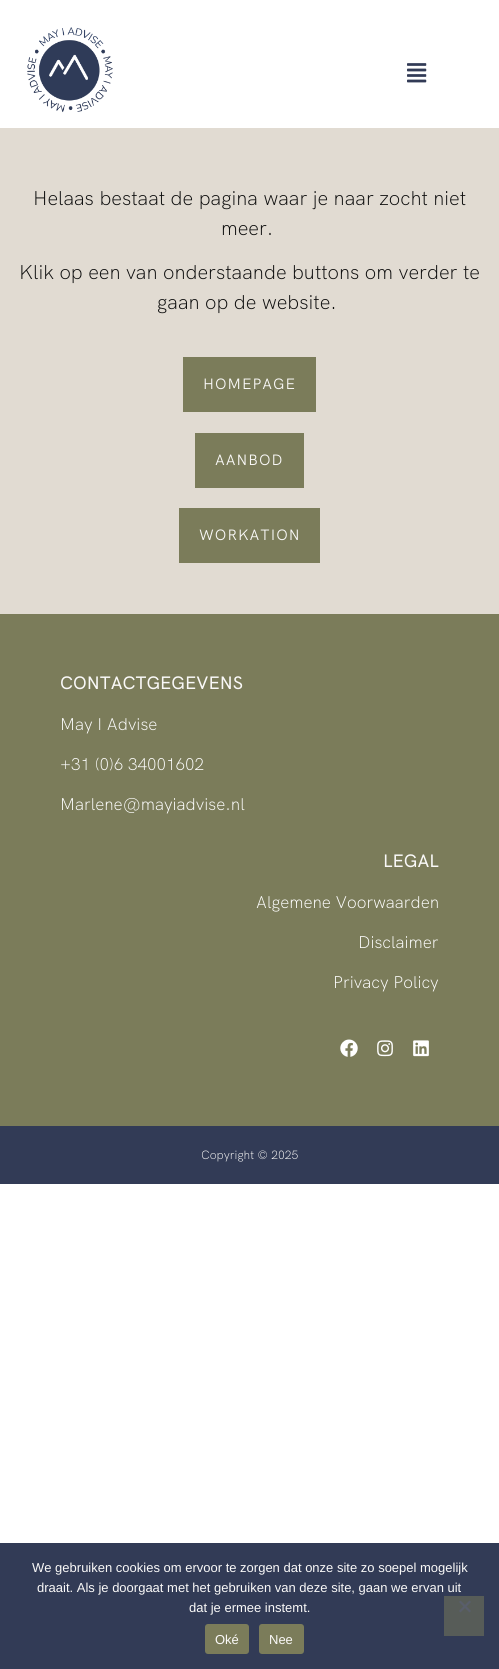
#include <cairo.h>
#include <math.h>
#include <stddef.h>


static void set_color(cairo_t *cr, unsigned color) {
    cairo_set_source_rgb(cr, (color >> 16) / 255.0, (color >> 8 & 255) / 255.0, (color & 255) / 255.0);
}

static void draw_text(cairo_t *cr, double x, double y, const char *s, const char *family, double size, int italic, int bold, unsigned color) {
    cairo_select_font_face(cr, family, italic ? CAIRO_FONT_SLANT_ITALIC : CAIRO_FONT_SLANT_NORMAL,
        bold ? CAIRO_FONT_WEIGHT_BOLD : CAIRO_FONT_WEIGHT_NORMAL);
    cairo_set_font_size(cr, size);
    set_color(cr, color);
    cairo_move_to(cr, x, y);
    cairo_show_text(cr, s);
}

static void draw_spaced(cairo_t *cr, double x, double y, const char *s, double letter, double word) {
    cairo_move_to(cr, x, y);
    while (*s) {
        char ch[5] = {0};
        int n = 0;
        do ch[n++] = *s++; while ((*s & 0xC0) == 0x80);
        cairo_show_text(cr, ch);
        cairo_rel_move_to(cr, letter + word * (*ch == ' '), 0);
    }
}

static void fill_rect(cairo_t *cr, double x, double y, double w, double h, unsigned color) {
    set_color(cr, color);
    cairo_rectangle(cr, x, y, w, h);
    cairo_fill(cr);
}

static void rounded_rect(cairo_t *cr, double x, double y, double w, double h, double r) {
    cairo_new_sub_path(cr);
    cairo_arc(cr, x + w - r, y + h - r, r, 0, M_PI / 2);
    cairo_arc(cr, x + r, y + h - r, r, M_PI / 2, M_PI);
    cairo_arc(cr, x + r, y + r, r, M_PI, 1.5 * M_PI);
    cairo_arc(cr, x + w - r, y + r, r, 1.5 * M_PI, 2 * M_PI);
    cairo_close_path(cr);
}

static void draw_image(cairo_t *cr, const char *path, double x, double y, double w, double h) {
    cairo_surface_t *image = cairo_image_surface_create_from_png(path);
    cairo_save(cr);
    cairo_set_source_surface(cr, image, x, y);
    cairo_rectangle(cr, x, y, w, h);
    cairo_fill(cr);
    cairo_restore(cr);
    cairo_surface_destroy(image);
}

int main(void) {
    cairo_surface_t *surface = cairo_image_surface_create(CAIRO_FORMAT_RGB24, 499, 1669);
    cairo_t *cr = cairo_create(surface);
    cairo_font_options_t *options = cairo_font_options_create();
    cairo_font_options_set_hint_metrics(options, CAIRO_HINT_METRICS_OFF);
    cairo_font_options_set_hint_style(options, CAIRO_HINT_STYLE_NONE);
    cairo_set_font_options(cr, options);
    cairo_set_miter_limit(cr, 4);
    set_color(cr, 0xFFFFFF);
    cairo_paint(cr);
    draw_image(cr, "assets/img1.png", 27, 27, 86, 86);
    draw_image(cr, "assets/img2.png", 407, 63, 20, 20);
    fill_rect(cr, 0, 128, 499, 486, 0xE1DBD2);
    draw_text(cr, 33, 205, "Helaas bestaat de pagina waar je naar zocht niet", "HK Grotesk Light", 20, 0, 0, 0x0E0E0E);
    draw_text(cr, 221, 235, "meer.", "HK Grotesk Light", 20, 0, 0, 0x0E0E0E);
    draw_text(cr, 19, 279, "Klik op een van onderstaande buttons om verder te", "HK Grotesk Light", 20, 0, 0, 0x0E0E0E);
    draw_text(cr, 157, 309, "gaan op de website.", "HK Grotesk Light", 20, 0, 0, 0x0E0E0E);
    fill_rect(cr, 183, 357, 133, 55, 0x7B7C5A);
    cairo_select_font_face(cr, "HK Grotesk", CAIRO_FONT_SLANT_NORMAL, CAIRO_FONT_WEIGHT_NORMAL);
    cairo_set_font_size(cr, 15);
    set_color(cr, 0xFAF9F8);
    draw_spaced(cr, 203, 389, "HOMEPAGE", 1, 0);
    fill_rect(cr, 195, 433, 109, 55, 0x7B7C5A);
    set_color(cr, 0xFAF9F8);
    draw_spaced(cr, 215, 465, "AANBOD", 1, 0);
    fill_rect(cr, 179, 508, 141, 55, 0x7B7C5A);
    set_color(cr, 0xFAF9F8);
    draw_spaced(cr, 199, 540, "WORKATION", 1, 0);
    fill_rect(cr, 0, 614, 499, 512, 0x7B7C5A);
    draw_text(cr, 60, 689, "CONTACTGEGEVENS", "HK Grotesk Medium", 18, 0, 0, 0xFAF9F8);
    draw_text(cr, 60, 730, "May I Advise", "HK Grotesk Light", 17, 0, 0, 0xFFFFFF);
    draw_text(cr, 60, 770, "+31 (0)6 34001602", "HK Grotesk Light", 17, 0, 0, 0xFFFFFF);
    draw_text(cr, 60, 810, "Marlene@mayiadvise.nl", "HK Grotesk Light", 17, 0, 0, 0xFFFFFF);
    draw_text(cr, 383, 867, "LEGAL", "HK Grotesk Medium", 18, 0, 0, 0xFAF9F8);
    draw_text(cr, 256, 908, "Algemene Voorwaarden", "HK Grotesk Light", 17, 0, 0, 0xFFFFFF);
    draw_text(cr, 358, 948, "Disclaimer", "HK Grotesk Light", 17, 0, 0, 0xFFFFFF);
    draw_text(cr, 333, 988, "Privacy Policy", "HK Grotesk Light", 17, 0, 0, 0xFFFFFF);
    draw_image(cr, "assets/img3.png", 340, 1039, 18, 18);
    draw_image(cr, "assets/img4.png", 377, 1040, 16, 17);
    draw_image(cr, "assets/img5.png", 413, 1040, 16, 17);
    fill_rect(cr, 0, 1126, 499, 58, 0x323B56);
    draw_text(cr, 201, 1159, "Copyright © 2025", "HK Grotesk Light", 12, 0, 0, 0xFAF9F8);
    fill_rect(cr, 0, 1543, 499, 126, 0x323B56);
    draw_text(cr, 32, 1572, "We gebruiken cookies om ervoor te zorgen dat onze site zo soepel mogelijk", "Liberation Sans", 13, 0, 0, 0xFAF9F8);
    draw_text(cr, 37, 1592, "draait. Als je doorgaat met het gebruiken van deze site, gaan we ervan uit", "Liberation Sans", 13, 0, 0, 0xFAF9F8);
    draw_text(cr, 189, 1612, "dat je ermee instemt.", "Liberation Sans", 13, 0, 0, 0xFAF9F8);
    fill_rect(cr, 444, 1596, 40, 40, 0x575C58);
    set_color(cr, 0x595E6B);
    cairo_new_path(cr);
    cairo_move_to(cr, 469.5, 1600.5);
    cairo_line_to(cr, 471, 1602);
    cairo_line_to(cr, 460.5, 1612.5);
    cairo_line_to(cr, 459, 1611);
    cairo_close_path(cr);
    cairo_fill(cr);
    cairo_new_path(cr);
    cairo_move_to(cr, 459, 1602);
    cairo_line_to(cr, 460.5, 1600.5);
    cairo_line_to(cr, 471, 1611);
    cairo_line_to(cr, 469.5, 1612.5);
    cairo_close_path(cr);
    cairo_fill(cr);
    set_color(cr, 0x7B7C5A);
    rounded_rect(cr, 205, 1624, 44, 30, 3);
    cairo_fill(cr);
    draw_text(cr, 215, 1644, "Oké", "Liberation Sans", 13, 0, 0, 0xFAF9F8);
    set_color(cr, 0x7B7C5A);
    rounded_rect(cr, 259, 1624, 45, 30, 3);
    cairo_fill(cr);
    draw_text(cr, 269, 1644, "Nee", "Liberation Sans", 13, 0, 0, 0xFAF9F8);
    cairo_surface_write_to_png(surface, "output.png");
    cairo_font_options_destroy(options);
    cairo_destroy(cr);
    cairo_surface_destroy(surface);
    return 0;
}
